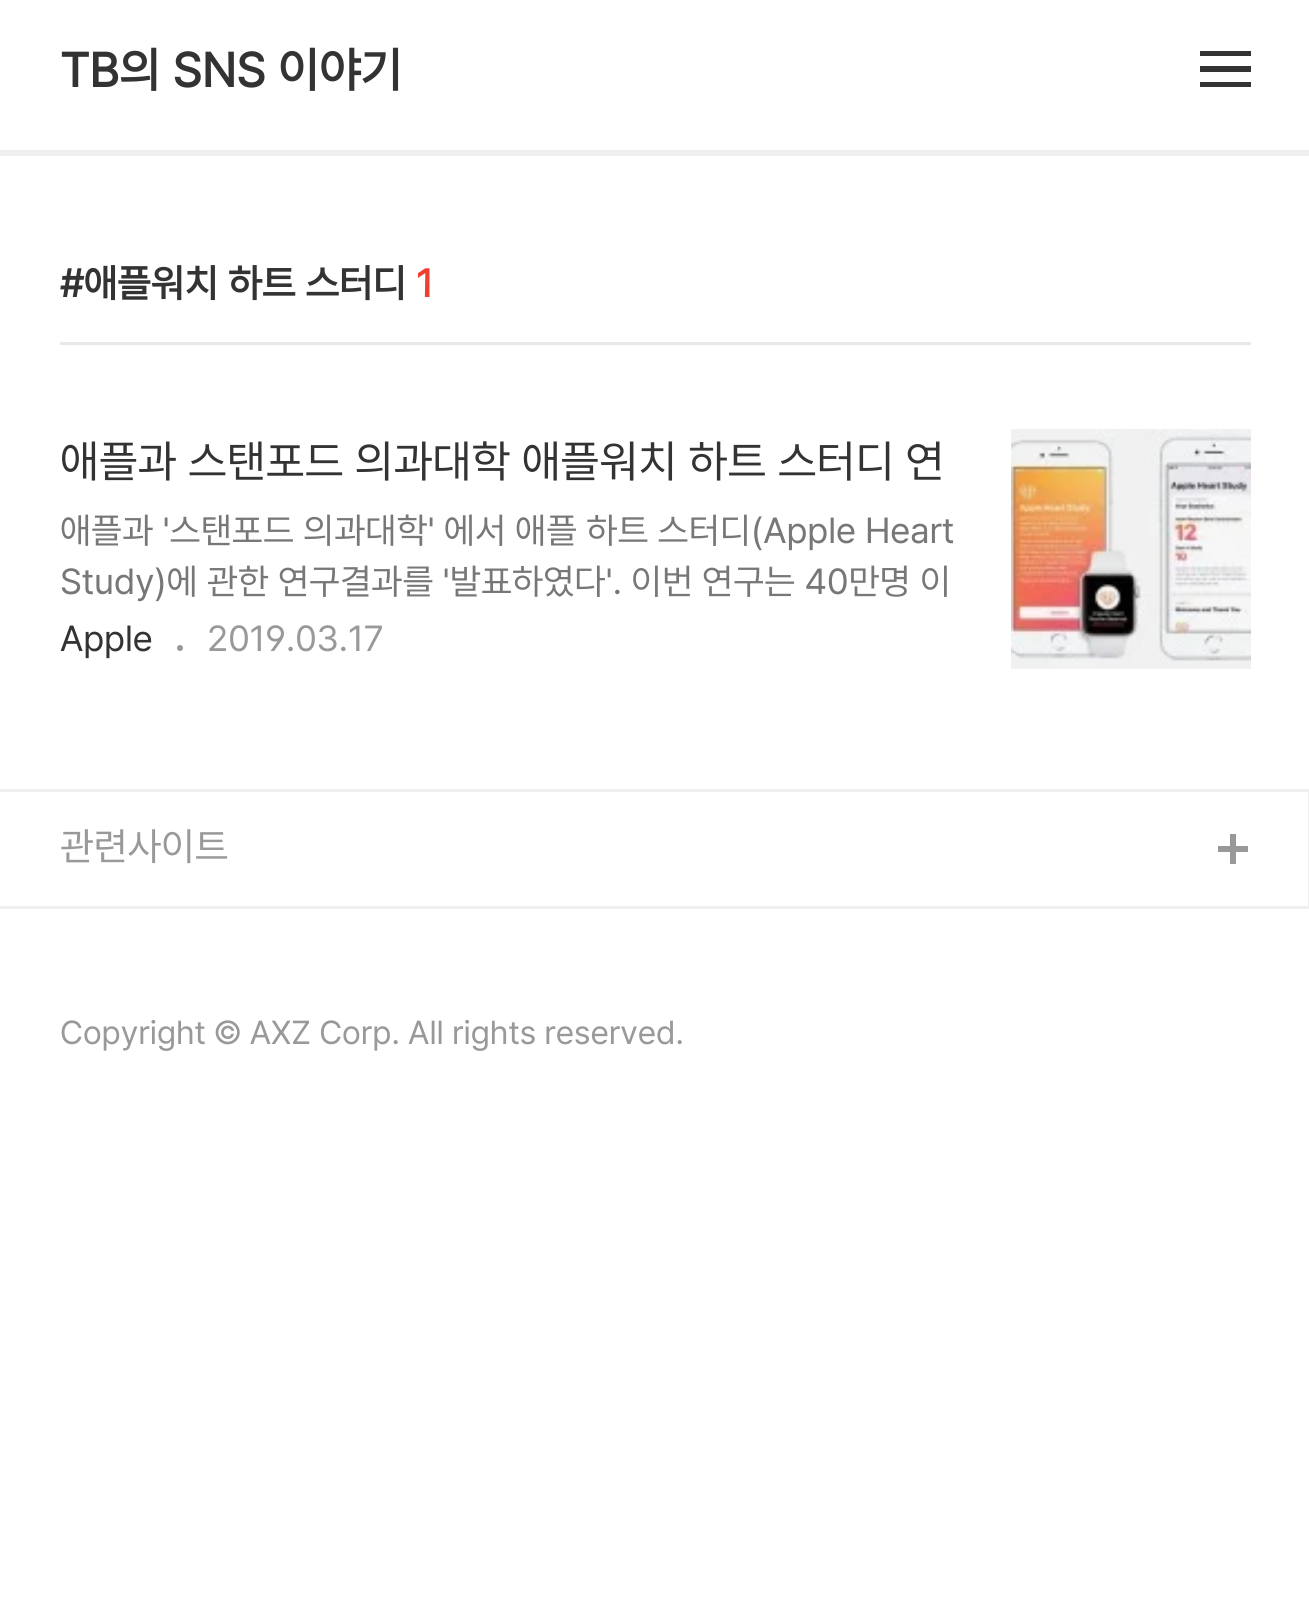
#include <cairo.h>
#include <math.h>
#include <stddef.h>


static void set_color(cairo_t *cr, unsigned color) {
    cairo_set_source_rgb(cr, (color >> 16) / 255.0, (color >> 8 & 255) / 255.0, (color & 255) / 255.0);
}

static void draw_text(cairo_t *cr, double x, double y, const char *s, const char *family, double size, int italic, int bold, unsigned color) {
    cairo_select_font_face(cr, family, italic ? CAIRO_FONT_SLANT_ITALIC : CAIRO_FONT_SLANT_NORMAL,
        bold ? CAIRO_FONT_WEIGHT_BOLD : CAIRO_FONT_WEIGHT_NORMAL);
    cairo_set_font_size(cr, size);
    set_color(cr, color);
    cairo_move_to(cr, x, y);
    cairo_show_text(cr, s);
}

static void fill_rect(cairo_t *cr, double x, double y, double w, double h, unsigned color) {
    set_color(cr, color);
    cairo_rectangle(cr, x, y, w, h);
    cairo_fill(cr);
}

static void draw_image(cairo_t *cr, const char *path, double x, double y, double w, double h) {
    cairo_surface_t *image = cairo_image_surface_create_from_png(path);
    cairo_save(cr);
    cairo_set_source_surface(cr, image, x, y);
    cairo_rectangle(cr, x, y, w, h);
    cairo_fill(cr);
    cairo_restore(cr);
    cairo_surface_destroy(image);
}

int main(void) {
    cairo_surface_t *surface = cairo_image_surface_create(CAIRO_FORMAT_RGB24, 1309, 1611);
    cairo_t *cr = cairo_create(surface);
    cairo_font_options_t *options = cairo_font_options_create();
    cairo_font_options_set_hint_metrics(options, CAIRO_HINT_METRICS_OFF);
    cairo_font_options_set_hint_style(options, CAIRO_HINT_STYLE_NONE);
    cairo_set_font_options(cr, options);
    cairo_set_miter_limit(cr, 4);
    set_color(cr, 0xFFFFFF);
    cairo_paint(cr);
    fill_rect(cr, 0, 150, 1309, 6, 0xEFEFEF);
    draw_text(cr, 60, 87, "TB의 SNS 이야기", "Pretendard", 48, 0, 1, 0x333333);
    cairo_set_fill_rule(cr, CAIRO_FILL_RULE_EVEN_ODD);
    cairo_new_path(cr);
    cairo_move_to(cr, 1200, 51);
    cairo_line_to(cr, 1251, 51);
    cairo_line_to(cr, 1251, 56);
    cairo_line_to(cr, 1200, 56);
    cairo_close_path(cr);
    cairo_move_to(cr, 1200, 66);
    cairo_line_to(cr, 1251, 66);
    cairo_line_to(cr, 1251, 72);
    cairo_line_to(cr, 1200, 72);
    cairo_close_path(cr);
    cairo_move_to(cr, 1200, 82);
    cairo_line_to(cr, 1251, 82);
    cairo_line_to(cr, 1251, 87);
    cairo_line_to(cr, 1200, 87);
    cairo_close_path(cr);
    cairo_fill(cr);
    fill_rect(cr, 60, 342, 1191, 3, 0xE8E8E8);
    draw_text(cr, 60, 297, "#애플워치 하트 스터디", "Pretendard", 39, 0, 1, 0x333333);
    draw_text(cr, 416, 297, "1", "Pretendard", 39, 0, 1, 0xEF402F);
    draw_text(cr, 60, 477, "애플과 스탠포드 의과대학 애플워치 하트 스터디 연", "Pretendard", 45, 0, 0, 0x333333);
    draw_text(cr, 60, 543, "애플과 '스탠포드 의과대학' 에서 애플 하트 스터디(Apple Heart", "Pretendard", 36, 0, 0, 0x777777);
    draw_text(cr, 60, 594, "Study)에 관한 연구결과를 '발표하였다'. 이번 연구는 40만명 이", "Pretendard", 36, 0, 0, 0x777777);
    draw_text(cr, 60, 651, "Apple", "Pretendard", 36, 0, 0, 0x333333);
    set_color(cr, 0x999999);
    cairo_new_path(cr);
    cairo_arc(cr, 180, 648, 3, 0, 2 * M_PI);
    cairo_fill(cr);
    draw_text(cr, 207, 651, "2019.03.17", "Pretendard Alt", 36, 0, 0, 0x999999);
    draw_image(cr, "assets/img1.png", 1011, 429, 240, 240);
    fill_rect(cr, 0, 789, 1309, 3, 0xEFEFEF);
    draw_image(cr, "assets/img2.png", 1218, 834, 30, 30);
    fill_rect(cr, 1308, 789, 1, 120, 0xEFEFEF);
    fill_rect(cr, 0, 906, 1309, 3, 0xEFEFEF);
    draw_text(cr, 60, 860, "관련사이트", "Pretendard", 39, 0, 0, 0x999999);
    draw_text(cr, 60, 1044, "Copyright © AXZ Corp. All rights reserved.", "Pretendard", 33, 0, 0, 0x999999);
    cairo_surface_write_to_png(surface, "output.png");
    cairo_font_options_destroy(options);
    cairo_destroy(cr);
    cairo_surface_destroy(surface);
    return 0;
}
